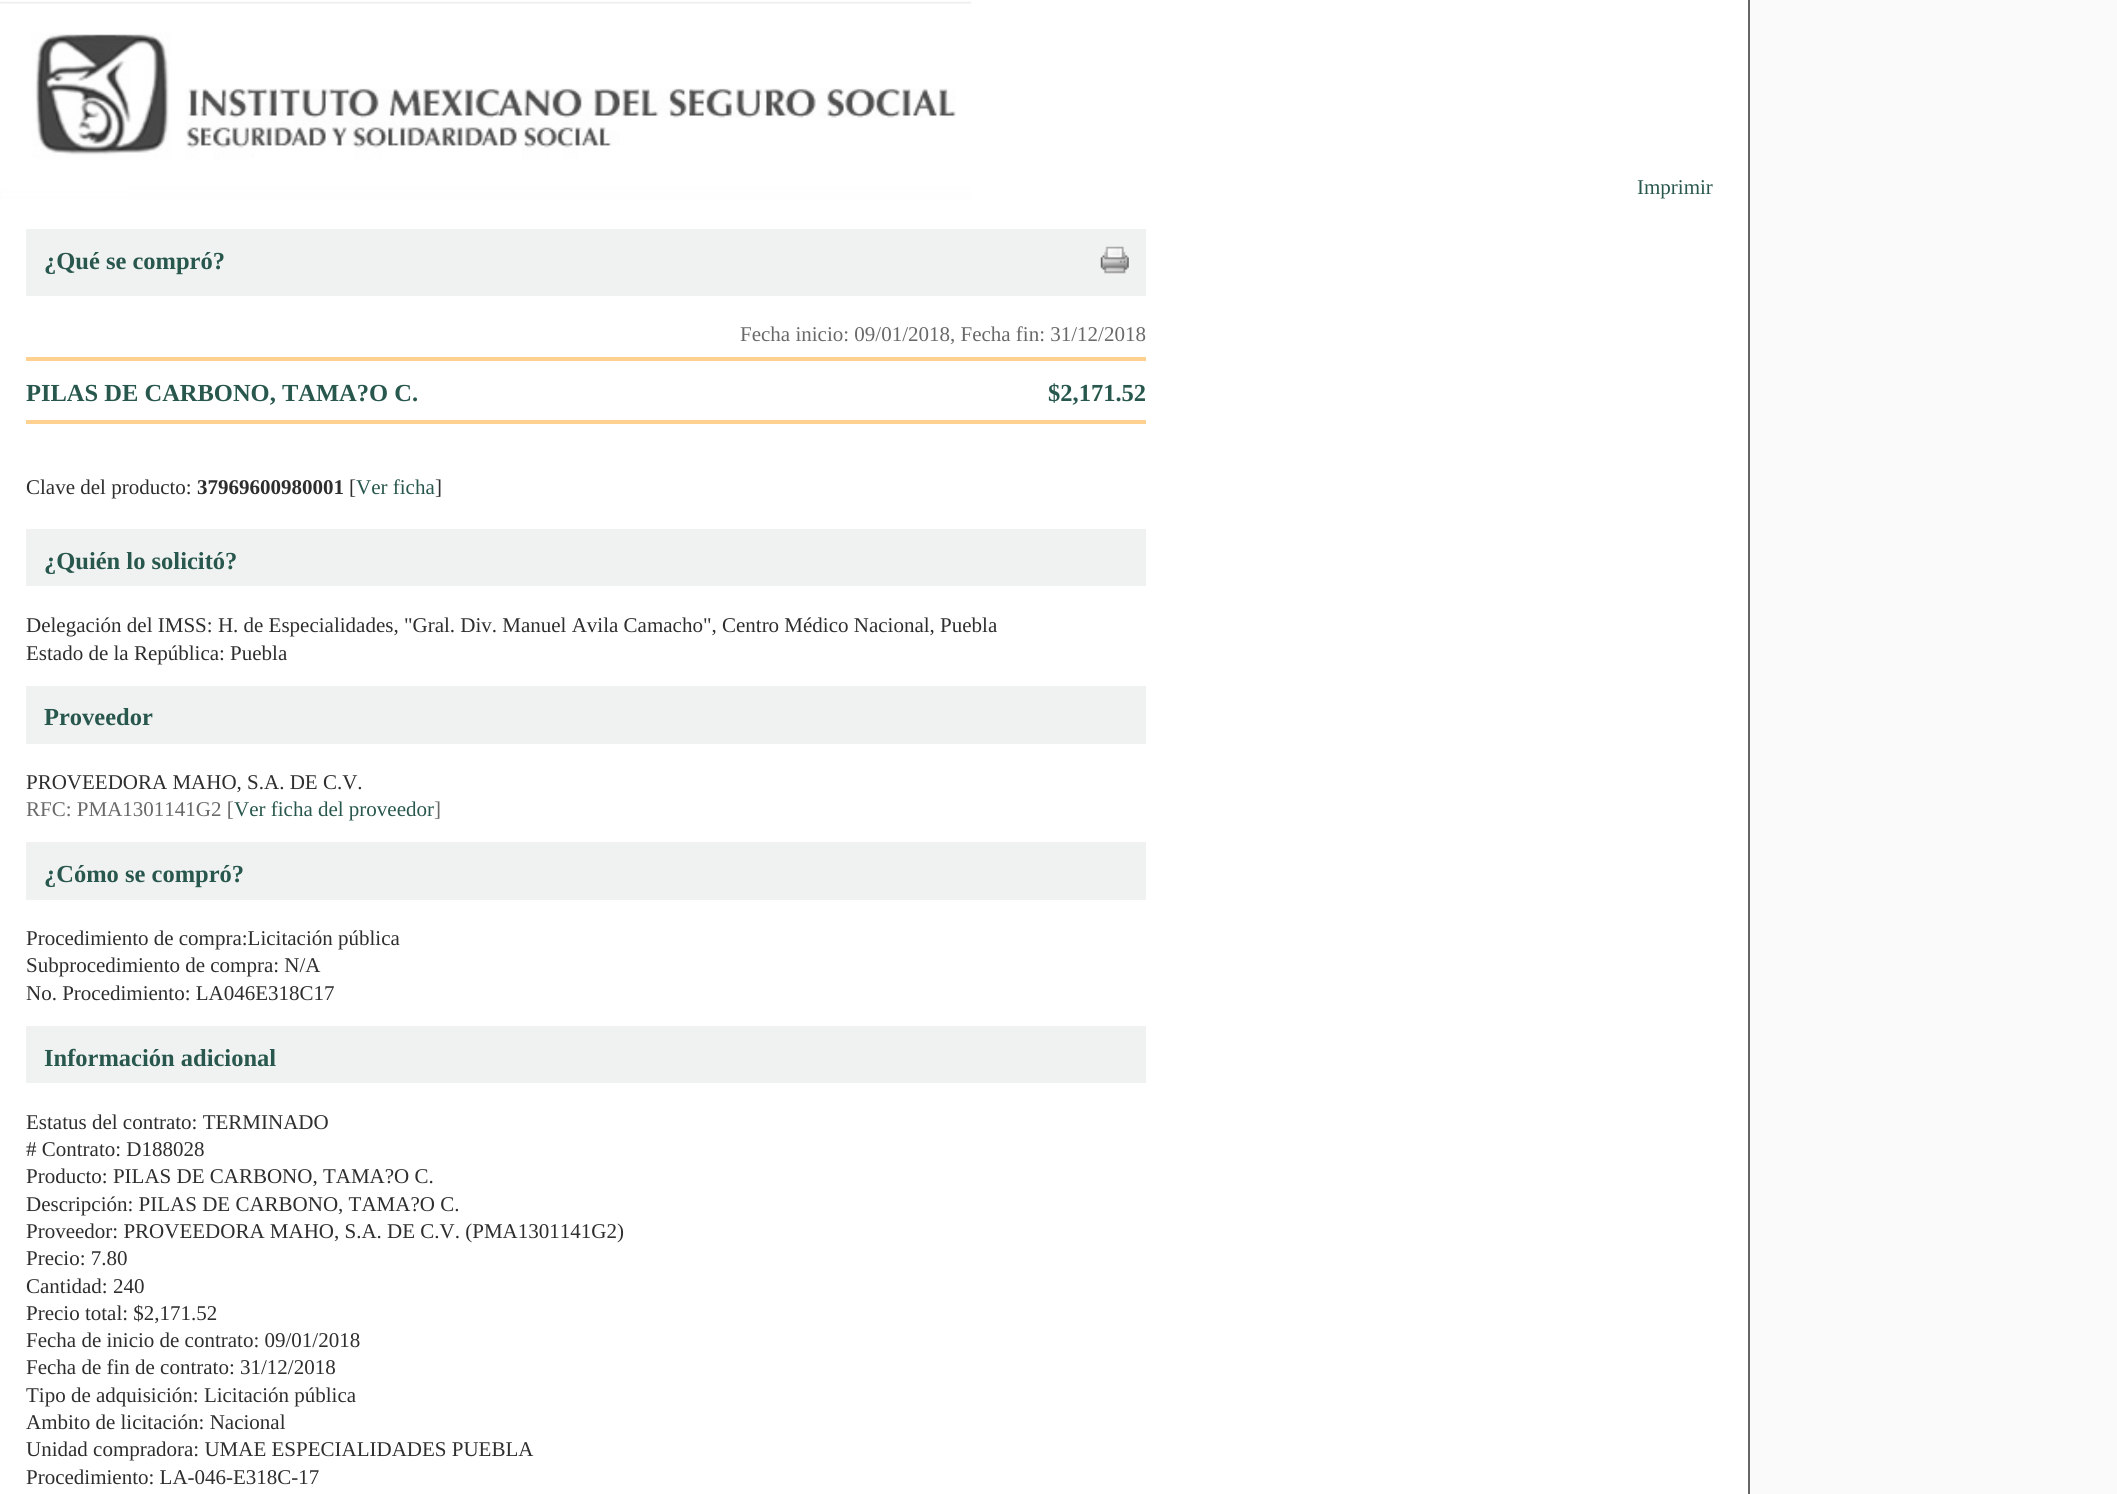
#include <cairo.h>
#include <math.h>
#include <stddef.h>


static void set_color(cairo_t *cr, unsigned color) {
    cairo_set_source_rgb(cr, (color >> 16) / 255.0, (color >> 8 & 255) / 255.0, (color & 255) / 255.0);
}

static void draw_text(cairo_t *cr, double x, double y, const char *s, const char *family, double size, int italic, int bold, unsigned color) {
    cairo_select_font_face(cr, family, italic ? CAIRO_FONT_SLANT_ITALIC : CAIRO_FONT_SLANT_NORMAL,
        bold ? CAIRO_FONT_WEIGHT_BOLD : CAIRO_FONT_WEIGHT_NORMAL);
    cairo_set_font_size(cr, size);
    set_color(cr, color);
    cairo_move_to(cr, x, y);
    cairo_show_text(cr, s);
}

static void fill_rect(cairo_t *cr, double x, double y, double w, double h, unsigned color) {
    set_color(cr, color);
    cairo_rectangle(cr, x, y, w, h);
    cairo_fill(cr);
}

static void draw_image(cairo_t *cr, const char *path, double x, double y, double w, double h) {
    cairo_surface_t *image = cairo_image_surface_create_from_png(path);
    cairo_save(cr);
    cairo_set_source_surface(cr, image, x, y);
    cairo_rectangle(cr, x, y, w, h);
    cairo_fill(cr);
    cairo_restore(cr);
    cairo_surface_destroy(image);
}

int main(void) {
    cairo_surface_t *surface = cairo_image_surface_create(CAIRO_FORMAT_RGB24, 2117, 1494);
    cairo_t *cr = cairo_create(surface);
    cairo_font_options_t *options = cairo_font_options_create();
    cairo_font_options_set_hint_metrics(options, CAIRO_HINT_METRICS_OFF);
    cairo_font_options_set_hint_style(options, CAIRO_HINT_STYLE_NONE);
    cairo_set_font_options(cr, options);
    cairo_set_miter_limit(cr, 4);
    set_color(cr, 0xFAFAFA);
    cairo_paint(cr);
    fill_rect(cr, 0, 0, 1748, 1494, 0xFFFFFF);
    fill_rect(cr, 1748, 0, 2, 1494, 0x666666);
    draw_image(cr, "assets/img1.png", 0, 1, 972, 198);
    draw_text(cr, 1637, 194, "Imprimir", "Liberation Serif", 21, 0, 0, 0x28574D);
    fill_rect(cr, 26, 229, 1120, 67, 0xF0F2F1);
    draw_text(cr, 44, 269, "¿Qué se compró?", "Liberation Serif", 24.5, 0, 1, 0x28574D);
    draw_image(cr, "assets/img2.png", 1100, 246, 29, 28);
    draw_text(cr, 740, 341, "Fecha inicio: 09/01/2018, Fecha fin: 31/12/2018", "Liberation Serif", 21, 0, 0, 0x696969);
    fill_rect(cr, 26, 357, 1120, 4, 0xFED190);
    draw_text(cr, 26, 401, "PILAS DE CARBONO, TAMA?O C.", "Liberation Serif", 24.5, 0, 1, 0x28574D);
    draw_text(cr, 1048, 401, "$2,171.52", "Liberation Serif", 24.5, 0, 1, 0x28574D);
    fill_rect(cr, 26, 420, 1120, 4, 0xFED190);
    draw_text(cr, 26, 494, "Clave del producto:", "Liberation Serif", 21, 0, 0, 0x2E2E2E);
    draw_text(cr, 197, 494, "37969600980001", "Liberation Serif", 21, 0, 1, 0x2E2E2E);
    draw_text(cr, 349, 494, "[", "Liberation Serif", 21, 0, 0, 0x2E2E2E);
    draw_text(cr, 356, 494, "Ver ficha", "Liberation Serif", 21, 0, 0, 0x28574D);
    draw_text(cr, 435, 494, "]", "Liberation Serif", 21, 0, 0, 0x2E2E2E);
    fill_rect(cr, 26, 529, 1120, 57, 0xF0F2F1);
    draw_text(cr, 44, 569, "¿Quién lo solicitó?", "Liberation Serif", 24.5, 0, 1, 0x28574D);
    draw_text(cr, 26, 632, "Delegación del IMSS: H. de Especialidades, \"Gral. Div. Manuel Avila Camacho\", Centro Médico Nacional, Puebla", "Liberation Serif", 21, 0, 0, 0x2E2E2E);
    draw_text(cr, 26, 660, "Estado de la República: Puebla", "Liberation Serif", 21, 0, 0, 0x2E2E2E);
    fill_rect(cr, 26, 686, 1120, 58, 0xF0F2F1);
    draw_text(cr, 44, 725, "Proveedor", "Liberation Serif", 24.5, 0, 1, 0x28574D);
    draw_text(cr, 26, 789, "PROVEEDORA MAHO, S.A. DE C.V.", "Liberation Serif", 21, 0, 0, 0x2E2E2E);
    draw_text(cr, 26, 816, "RFC: PMA1301141G2 [", "Liberation Serif", 21, 0, 0, 0x696969);
    draw_text(cr, 234, 816, "Ver ficha del proveedor", "Liberation Serif", 21, 0, 0, 0x28574D);
    draw_text(cr, 434, 816, "]", "Liberation Serif", 21, 0, 0, 0x696969);
    fill_rect(cr, 26, 842, 1120, 58, 0xF0F2F1);
    draw_text(cr, 44, 882, "¿Cómo se compró?", "Liberation Serif", 24.5, 0, 1, 0x28574D);
    draw_text(cr, 26, 945, "Procedimiento de compra:Licitación pública", "Liberation Serif", 21, 0, 0, 0x2E2E2E);
    draw_text(cr, 26, 972, "Subprocedimiento de compra: N/A", "Liberation Serif", 21, 0, 0, 0x2E2E2E);
    draw_text(cr, 26, 1000, "No. Procedimiento: LA046E318C17", "Liberation Serif", 21, 0, 0, 0x2E2E2E);
    fill_rect(cr, 26, 1026, 1120, 57, 0xF0F2F1);
    draw_text(cr, 44, 1066, "Información adicional", "Liberation Serif", 24.5, 0, 1, 0x28574D);
    draw_text(cr, 26, 1129, "Estatus del contrato: TERMINADO", "Liberation Serif", 21, 0, 0, 0x2E2E2E);
    draw_text(cr, 26, 1156, "# Contrato: D188028", "Liberation Serif", 21, 0, 0, 0x2E2E2E);
    draw_text(cr, 26, 1183, "Producto: PILAS DE CARBONO, TAMA?O C.", "Liberation Serif", 21, 0, 0, 0x2E2E2E);
    draw_text(cr, 26, 1211, "Descripción: PILAS DE CARBONO, TAMA?O C.", "Liberation Serif", 21, 0, 0, 0x2E2E2E);
    draw_text(cr, 26, 1238, "Proveedor: PROVEEDORA MAHO, S.A. DE C.V. (PMA1301141G2)", "Liberation Serif", 21, 0, 0, 0x2E2E2E);
    draw_text(cr, 26, 1265, "Precio: 7.80", "Liberation Serif", 21, 0, 0, 0x2E2E2E);
    draw_text(cr, 26, 1293, "Cantidad: 240", "Liberation Serif", 21, 0, 0, 0x2E2E2E);
    draw_text(cr, 26, 1320, "Precio total: $2,171.52", "Liberation Serif", 21, 0, 0, 0x2E2E2E);
    draw_text(cr, 26, 1347, "Fecha de inicio de contrato: 09/01/2018", "Liberation Serif", 21, 0, 0, 0x2E2E2E);
    draw_text(cr, 26, 1374, "Fecha de fin de contrato: 31/12/2018", "Liberation Serif", 21, 0, 0, 0x2E2E2E);
    draw_text(cr, 26, 1402, "Tipo de adquisición: Licitación pública", "Liberation Serif", 21, 0, 0, 0x2E2E2E);
    draw_text(cr, 26, 1429, "Ambito de licitación: Nacional", "Liberation Serif", 21, 0, 0, 0x2E2E2E);
    draw_text(cr, 26, 1456, "Unidad compradora: UMAE ESPECIALIDADES PUEBLA", "Liberation Serif", 21, 0, 0, 0x2E2E2E);
    draw_text(cr, 26, 1484, "Procedimiento: LA-046-E318C-17", "Liberation Serif", 21, 0, 0, 0x2E2E2E);
    cairo_surface_write_to_png(surface, "output.png");
    cairo_font_options_destroy(options);
    cairo_destroy(cr);
    cairo_surface_destroy(surface);
    return 0;
}
